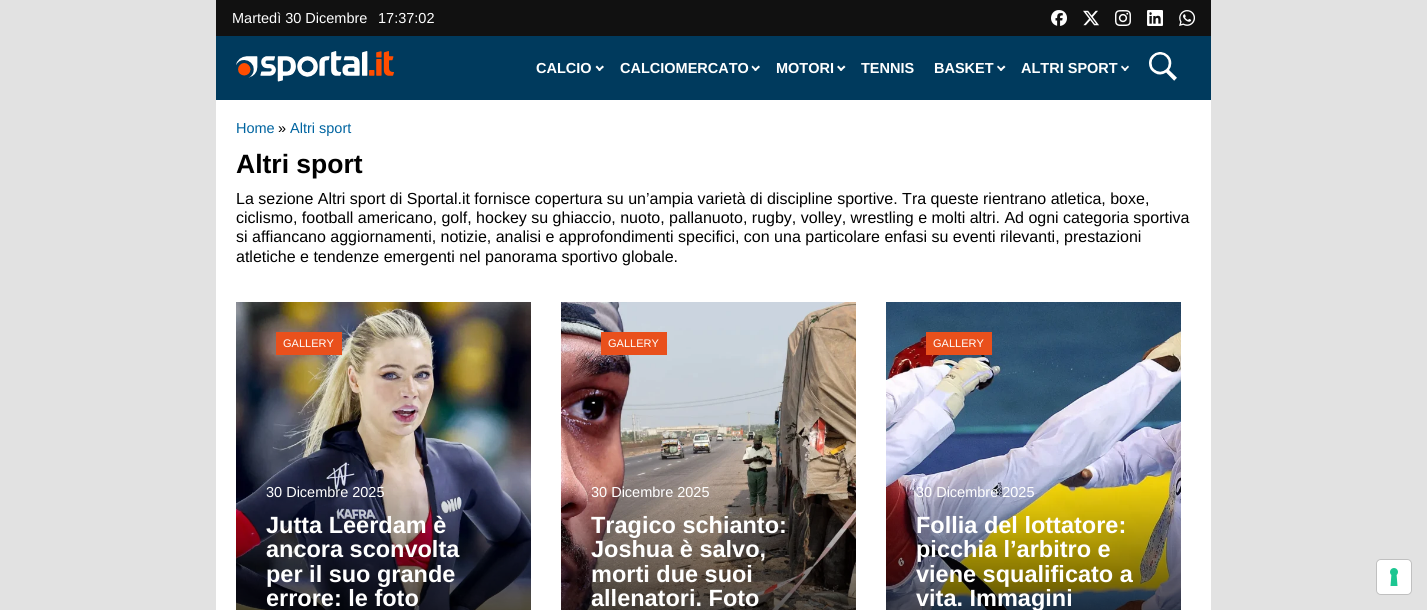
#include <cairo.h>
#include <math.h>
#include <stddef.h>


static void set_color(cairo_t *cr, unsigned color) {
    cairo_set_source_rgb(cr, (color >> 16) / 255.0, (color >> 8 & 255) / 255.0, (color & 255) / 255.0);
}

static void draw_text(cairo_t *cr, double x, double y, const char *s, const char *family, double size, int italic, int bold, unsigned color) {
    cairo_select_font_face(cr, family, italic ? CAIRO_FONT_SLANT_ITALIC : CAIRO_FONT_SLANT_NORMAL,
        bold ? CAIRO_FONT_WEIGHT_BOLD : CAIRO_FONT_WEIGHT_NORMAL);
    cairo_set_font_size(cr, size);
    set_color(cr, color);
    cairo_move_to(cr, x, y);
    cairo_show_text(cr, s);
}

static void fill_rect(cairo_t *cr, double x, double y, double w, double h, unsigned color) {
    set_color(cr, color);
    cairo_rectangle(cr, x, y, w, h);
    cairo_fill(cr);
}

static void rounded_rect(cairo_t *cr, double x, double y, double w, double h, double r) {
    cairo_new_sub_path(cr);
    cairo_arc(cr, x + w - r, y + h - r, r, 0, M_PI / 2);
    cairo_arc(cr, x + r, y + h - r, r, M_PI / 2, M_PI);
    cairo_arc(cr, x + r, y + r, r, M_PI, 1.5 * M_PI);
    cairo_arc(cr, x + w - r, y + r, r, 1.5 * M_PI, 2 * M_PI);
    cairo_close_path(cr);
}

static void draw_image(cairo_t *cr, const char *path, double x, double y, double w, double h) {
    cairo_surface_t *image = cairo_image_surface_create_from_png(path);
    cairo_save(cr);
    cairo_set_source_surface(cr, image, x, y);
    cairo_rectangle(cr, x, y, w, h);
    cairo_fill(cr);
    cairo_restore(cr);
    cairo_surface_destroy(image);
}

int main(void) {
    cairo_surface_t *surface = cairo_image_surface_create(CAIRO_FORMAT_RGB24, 1427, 610);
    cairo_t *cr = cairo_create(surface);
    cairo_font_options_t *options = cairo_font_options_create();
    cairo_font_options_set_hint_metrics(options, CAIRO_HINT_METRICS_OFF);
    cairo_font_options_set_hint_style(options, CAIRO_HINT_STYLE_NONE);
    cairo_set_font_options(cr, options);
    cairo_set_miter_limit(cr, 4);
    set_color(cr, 0xE2E2E2);
    cairo_paint(cr);
    fill_rect(cr, 216, 0, 995, 36, 0x111111);
    draw_text(cr, 232, 23, "Martedì 30 Dicembre", "Liberation Sans", 14.5, 0, 0, 0xFFFFFF);
    draw_text(cr, 378, 23, "17:37:02", "Liberation Sans", 14.5, 0, 0, 0xFFFFFF);
    draw_image(cr, "assets/img1.png", 1051, 10, 16, 16);
    draw_image(cr, "assets/img2.png", 1083, 10, 16, 16);
    draw_image(cr, "assets/img3.png", 1115, 10, 16, 16);
    draw_image(cr, "assets/img4.png", 1147, 10, 16, 16);
    draw_image(cr, "assets/img5.png", 1179, 10, 16, 16);
    fill_rect(cr, 216, 36, 995, 64, 0x003A5D);
    draw_image(cr, "assets/img6.png", 236, 51, 158, 31);
    draw_text(cr, 536, 73, "CALCIO", "Liberation Sans", 14.5, 0, 1, 0xFFFFFF);
    cairo_new_path(cr);
    cairo_move_to(cr, 604, 67);
    cairo_line_to(cr, 599.5, 71);
    cairo_line_to(cr, 598, 70);
    cairo_line_to(cr, 602.5, 65.5);
    cairo_close_path(cr);
    cairo_fill(cr);
    cairo_new_path(cr);
    cairo_move_to(cr, 601, 70);
    cairo_line_to(cr, 599.5, 71);
    cairo_line_to(cr, 595.5, 67);
    cairo_line_to(cr, 597, 65.5);
    cairo_close_path(cr);
    cairo_fill(cr);
    draw_text(cr, 620, 73, "CALCIOMERCATO", "Liberation Sans", 14.5, 0, 1, 0xFFFFFF);
    cairo_new_path(cr);
    cairo_move_to(cr, 760, 67);
    cairo_line_to(cr, 755.5, 71);
    cairo_line_to(cr, 754, 70);
    cairo_line_to(cr, 758.5, 65.5);
    cairo_close_path(cr);
    cairo_fill(cr);
    cairo_new_path(cr);
    cairo_move_to(cr, 757, 70);
    cairo_line_to(cr, 755.5, 71);
    cairo_line_to(cr, 751.5, 67);
    cairo_line_to(cr, 752.5, 65.5);
    cairo_close_path(cr);
    cairo_fill(cr);
    draw_text(cr, 776, 73, "MOTORI", "Liberation Sans", 14.5, 0, 1, 0xFFFFFF);
    cairo_new_path(cr);
    cairo_move_to(cr, 845.5, 67);
    cairo_line_to(cr, 841, 71);
    cairo_line_to(cr, 839.5, 70);
    cairo_line_to(cr, 844, 65.5);
    cairo_close_path(cr);
    cairo_fill(cr);
    cairo_new_path(cr);
    cairo_move_to(cr, 842.5, 70);
    cairo_line_to(cr, 841, 71);
    cairo_line_to(cr, 837, 67);
    cairo_line_to(cr, 838.5, 65.5);
    cairo_close_path(cr);
    cairo_fill(cr);
    draw_text(cr, 861, 73, "TENNIS", "Liberation Sans", 14.5, 0, 1, 0xFFFFFF);
    draw_text(cr, 934, 73, "BASKET", "Liberation Sans", 14.5, 0, 1, 0xFFFFFF);
    cairo_new_path(cr);
    cairo_move_to(cr, 1005.5, 67);
    cairo_line_to(cr, 1001, 71);
    cairo_line_to(cr, 999.5, 70);
    cairo_line_to(cr, 1004, 65.5);
    cairo_close_path(cr);
    cairo_fill(cr);
    cairo_new_path(cr);
    cairo_move_to(cr, 1002.5, 70);
    cairo_line_to(cr, 1001, 71);
    cairo_line_to(cr, 997, 67);
    cairo_line_to(cr, 998, 65.5);
    cairo_close_path(cr);
    cairo_fill(cr);
    draw_text(cr, 1021, 73, "ALTRI SPORT", "Liberation Sans", 14.5, 0, 1, 0xFFFFFF);
    cairo_new_path(cr);
    cairo_move_to(cr, 1129, 67);
    cairo_line_to(cr, 1125, 71);
    cairo_line_to(cr, 1123.5, 70);
    cairo_line_to(cr, 1128, 65.5);
    cairo_close_path(cr);
    cairo_fill(cr);
    cairo_new_path(cr);
    cairo_move_to(cr, 1126.5, 70);
    cairo_line_to(cr, 1125, 71);
    cairo_line_to(cr, 1121, 67);
    cairo_line_to(cr, 1122, 65.5);
    cairo_close_path(cr);
    cairo_fill(cr);
    draw_image(cr, "assets/img7.png", 1149, 52, 28, 29);
    fill_rect(cr, 216, 100, 995, 510, 0xFFFFFF);
    draw_text(cr, 236, 133, "Home", "Liberation Sans", 14.5, 0, 0, 0x0064A0);
    draw_text(cr, 278, 133, "»", "Liberation Sans", 14.5, 0, 0, 0x000000);
    draw_text(cr, 290, 133, "Altri sport", "Liberation Sans", 14.5, 0, 0, 0x0064A0);
    draw_text(cr, 236, 173, "Altri sport", "Liberation Sans", 26.5, 0, 1, 0x000000);
    draw_text(cr, 236, 204, "La sezione Altri sport di Sportal.it fornisce copertura su un’ampia varietà di discipline sportive. Tra queste rientrano atletica, boxe,", "Liberation Sans", 16, 0, 0, 0x000000);
    draw_text(cr, 236, 223, "ciclismo, football americano, golf, hockey su ghiaccio, nuoto, pallanuoto, rugby, volley, wrestling e molti altri. Ad ogni categoria sportiva", "Liberation Sans", 16, 0, 0, 0x000000);
    draw_text(cr, 236, 242, "si affiancano aggiornamenti, notizie, analisi e approfondimenti specifici, con una particolare enfasi su eventi rilevanti, prestazioni", "Liberation Sans", 16, 0, 0, 0x000000);
    draw_text(cr, 236, 262, "atletiche e tendenze emergenti nel panorama sportivo globale.", "Liberation Sans", 16, 0, 0, 0x000000);
    draw_image(cr, "assets/img8.png", 236, 302, 295, 308);
    fill_rect(cr, 276, 332, 66, 23, 0xE9501C);
    draw_text(cr, 283, 347, "GALLERY", "Liberation Sans", 11, 0, 0, 0xFFFFFF);
    draw_text(cr, 266, 497, "30 Dicembre 2025", "Liberation Sans", 14.5, 0, 0, 0xFFFFFF);
    draw_text(cr, 266, 533, "Jutta Leerdam è", "Liberation Sans", 23.5, 0, 1, 0xFFFFFF);
    draw_text(cr, 266, 557, "ancora sconvolta", "Liberation Sans", 23.5, 0, 1, 0xFFFFFF);
    draw_text(cr, 266, 582, "per il suo grande", "Liberation Sans", 23.5, 0, 1, 0xFFFFFF);
    draw_text(cr, 266, 606, "errore: le foto", "Liberation Sans", 23.5, 0, 1, 0xFFFFFF);
    draw_image(cr, "assets/img9.png", 561, 302, 295, 308);
    fill_rect(cr, 601, 332, 66, 23, 0xE9501C);
    draw_text(cr, 608, 347, "GALLERY", "Liberation Sans", 11, 0, 0, 0xFFFFFF);
    draw_text(cr, 591, 497, "30 Dicembre 2025", "Liberation Sans", 14.5, 0, 0, 0xFFFFFF);
    draw_text(cr, 591, 533, "Tragico schianto:", "Liberation Sans", 23.5, 0, 1, 0xFFFFFF);
    draw_text(cr, 591, 557, "Joshua è salvo,", "Liberation Sans", 23.5, 0, 1, 0xFFFFFF);
    draw_text(cr, 591, 582, "morti due suoi", "Liberation Sans", 23.5, 0, 1, 0xFFFFFF);
    draw_text(cr, 591, 606, "allenatori. Foto", "Liberation Sans", 23.5, 0, 1, 0xFFFFFF);
    draw_image(cr, "assets/img10.png", 886, 302, 295, 308);
    fill_rect(cr, 926, 332, 66, 23, 0xE9501C);
    draw_text(cr, 933, 347, "GALLERY", "Liberation Sans", 11, 0, 0, 0xFFFFFF);
    draw_text(cr, 916, 497, "30 Dicembre 2025", "Liberation Sans", 14.5, 0, 0, 0xFFFFFF);
    draw_text(cr, 916, 533, "Follia del lottatore:", "Liberation Sans", 23.5, 0, 1, 0xFFFFFF);
    draw_text(cr, 916, 557, "picchia l’arbitro e", "Liberation Sans", 23.5, 0, 1, 0xFFFFFF);
    draw_text(cr, 916, 582, "viene squalificato a", "Liberation Sans", 23.5, 0, 1, 0xFFFFFF);
    draw_text(cr, 916, 606, "vita. Immagini", "Liberation Sans", 23.5, 0, 1, 0xFFFFFF);
    rounded_rect(cr, 1376.5, 559.5, 35, 35, 4.5);
    set_color(cr, 0xC0C0C0);
    cairo_set_line_width(cr, 1);
    cairo_stroke(cr);
    set_color(cr, 0xFFFFFF);
    rounded_rect(cr, 1377, 560, 34, 34, 4);
    cairo_fill(cr);
    draw_image(cr, "assets/img11.png", 1390, 568, 8, 18);
    cairo_surface_write_to_png(surface, "output.png");
    cairo_font_options_destroy(options);
    cairo_destroy(cr);
    cairo_surface_destroy(surface);
    return 0;
}
